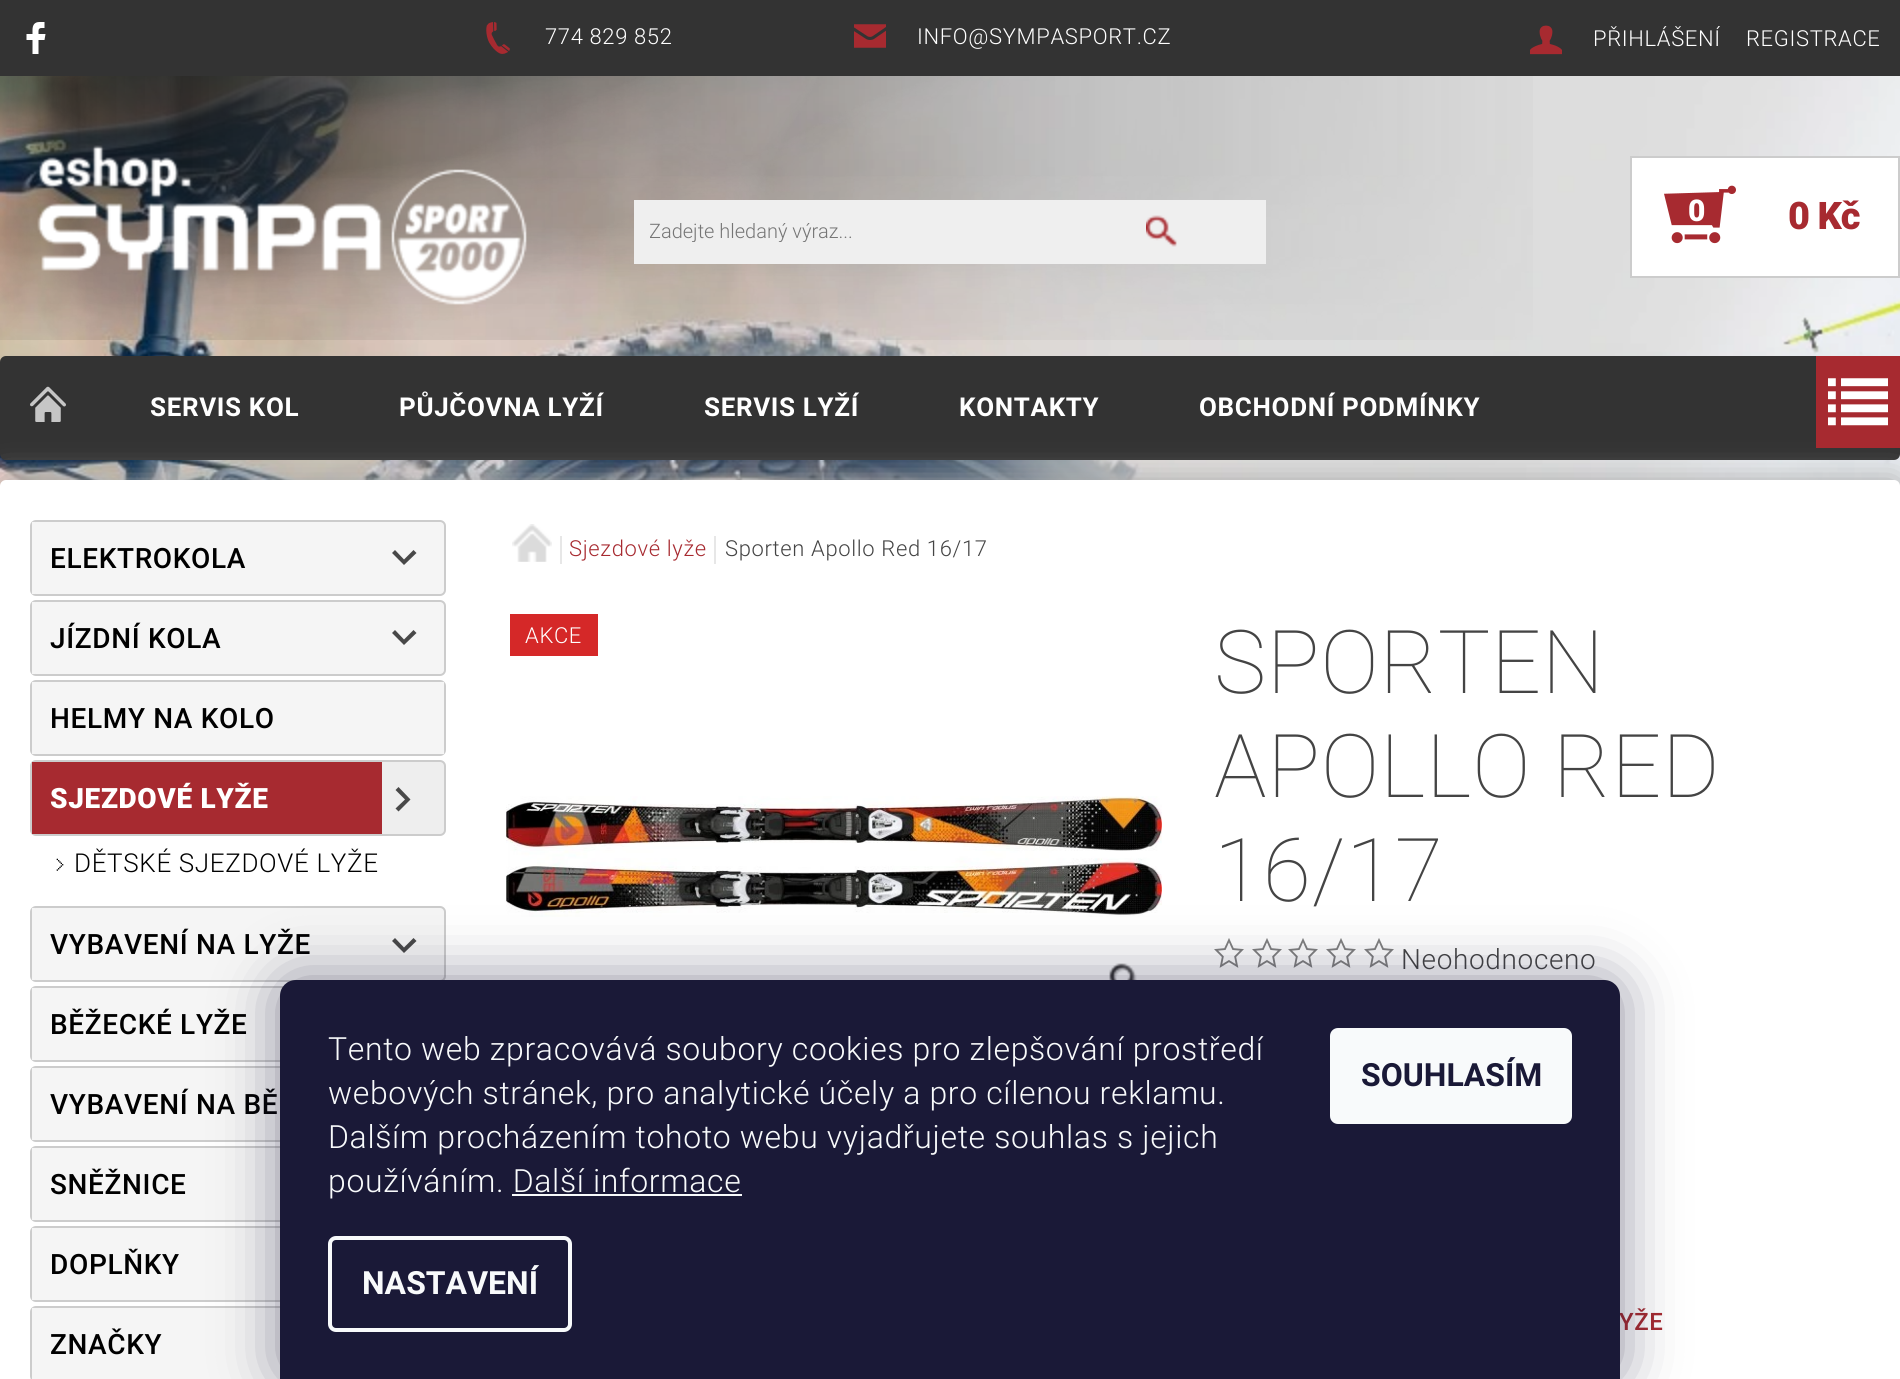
#include <cairo.h>
#include <math.h>
#include <stddef.h>


static void set_color(cairo_t *cr, unsigned color) {
    cairo_set_source_rgb(cr, (color >> 16) / 255.0, (color >> 8 & 255) / 255.0, (color & 255) / 255.0);
}

static void draw_text(cairo_t *cr, double x, double y, const char *s, const char *family, double size, int italic, int bold, unsigned color) {
    cairo_select_font_face(cr, family, italic ? CAIRO_FONT_SLANT_ITALIC : CAIRO_FONT_SLANT_NORMAL,
        bold ? CAIRO_FONT_WEIGHT_BOLD : CAIRO_FONT_WEIGHT_NORMAL);
    cairo_set_font_size(cr, size);
    set_color(cr, color);
    cairo_move_to(cr, x, y);
    cairo_show_text(cr, s);
}

static void draw_spaced(cairo_t *cr, double x, double y, const char *s, double letter, double word) {
    cairo_move_to(cr, x, y);
    while (*s) {
        char ch[5] = {0};
        int n = 0;
        do ch[n++] = *s++; while ((*s & 0xC0) == 0x80);
        cairo_show_text(cr, ch);
        cairo_rel_move_to(cr, letter + word * (*ch == ' '), 0);
    }
}

static void fill_rect(cairo_t *cr, double x, double y, double w, double h, unsigned color) {
    set_color(cr, color);
    cairo_rectangle(cr, x, y, w, h);
    cairo_fill(cr);
}

static void rounded_rect(cairo_t *cr, double x, double y, double w, double h, double r) {
    cairo_new_sub_path(cr);
    cairo_arc(cr, x + w - r, y + h - r, r, 0, M_PI / 2);
    cairo_arc(cr, x + r, y + h - r, r, M_PI / 2, M_PI);
    cairo_arc(cr, x + r, y + r, r, M_PI, 1.5 * M_PI);
    cairo_arc(cr, x + w - r, y + r, r, 1.5 * M_PI, 2 * M_PI);
    cairo_close_path(cr);
}

static void draw_shadow(cairo_t *cr, double x, double y, double w, double h, double r, double blur, double alpha) {
    cairo_push_group_with_content(cr, CAIRO_CONTENT_ALPHA);
    cairo_set_operator(cr, CAIRO_OPERATOR_SOURCE);
    for (int i = 15; i >= -15 && fmin(w, h) + blur * i / 3 > 0; i -= 2) {
        double e = blur * i / 6;
        cairo_set_source_rgba(cr, 0, 0, 0, alpha * erfc((i - 1) / 8.5) / 2);
        rounded_rect(cr, x - e, y - e, w + 2 * e, h + 2 * e, fmax(0, fmin(r + e + blur * .6, fmin(w, h) / 2 + e)));
        cairo_fill(cr);
    }
    cairo_pattern_t *soft = cairo_pop_group(cr);
    cairo_mask(cr, soft);
    cairo_pattern_destroy(soft);
}

static void draw_image(cairo_t *cr, const char *path, double x, double y, double w, double h) {
    cairo_surface_t *image = cairo_image_surface_create_from_png(path);
    cairo_save(cr);
    cairo_set_source_surface(cr, image, x, y);
    cairo_rectangle(cr, x, y, w, h);
    cairo_fill(cr);
    cairo_restore(cr);
    cairo_surface_destroy(image);
}

int main(void) {
    cairo_surface_t *surface = cairo_image_surface_create(CAIRO_FORMAT_RGB24, 1900, 1379);
    cairo_t *cr = cairo_create(surface);
    cairo_font_options_t *options = cairo_font_options_create();
    cairo_font_options_set_hint_metrics(options, CAIRO_HINT_METRICS_OFF);
    cairo_font_options_set_hint_style(options, CAIRO_HINT_STYLE_NONE);
    cairo_set_font_options(cr, options);
    cairo_set_miter_limit(cr, 4);
    set_color(cr, 0xFFFFFF);
    cairo_paint(cr);
    draw_image(cr, "assets/img1.png", 0, 76, 1900, 410);
    draw_image(cr, "assets/img2.png", 0, 76, 1533, 264);
    fill_rect(cr, 0, 0, 1900, 76, 0x333333);
    draw_image(cr, "assets/img3.png", 26, 22, 20, 32);
    draw_image(cr, "assets/img4.png", 486, 22, 24, 32);
    cairo_select_font_face(cr, "Roboto Light", CAIRO_FONT_SLANT_NORMAL, CAIRO_FONT_WEIGHT_NORMAL);
    cairo_set_font_size(cr, 22);
    set_color(cr, 0xFFFFFF);
    draw_spaced(cr, 545, 44, "774 829 852", 0.65, 0);
    draw_image(cr, "assets/img5.png", 854, 24, 32, 24);
    draw_spaced(cr, 917, 44, "INFO@SYMPASPORT.CZ", 0.65, 0);
    draw_image(cr, "assets/img6.png", 1530, 25, 32, 30);
    draw_spaced(cr, 1593, 46, "PŘIHLÁŠENÍ", 0.65, 0);
    draw_spaced(cr, 1746, 46, "REGISTRACE", 0.65, 0);
    draw_image(cr, "assets/img7.png", 37, 145, 490, 160);
    cairo_rectangle(cr, 1631, 157, 268, 120);
    cairo_fill_preserve(cr);
    set_color(cr, 0xCCCCCC);
    cairo_stroke(cr);
    draw_image(cr, "assets/img8.png", 1664, 185, 72, 59);
    cairo_select_font_face(cr, "Roboto Black", CAIRO_FONT_SLANT_NORMAL, CAIRO_FONT_WEIGHT_NORMAL);
    cairo_set_font_size(cr, 30);
    set_color(cr, 0xFFFFFF);
    draw_spaced(cr, 1688, 221, "0", -1, 0);
    cairo_set_font_size(cr, 38);
    set_color(cr, 0xA72A30);
    draw_spaced(cr, 1788, 229, "0 Kč", -1, 0);
    fill_rect(cr, 634, 200, 632, 64, 0xEFEFEF);
    cairo_save(cr);
    cairo_rectangle(cr, 650, 220, 382, 22);
    cairo_clip(cr);
    draw_text(cr, 649, 238, "Zadejte hledaný výraz...", "Roboto Light", 20, 0, 0, 0x757575);
    cairo_restore(cr);
    fill_rect(cr, 1146, 215, 31, 32, 0xA72A30);
    draw_image(cr, "assets/img9.png", 1146, 214, 32, 34);
    set_color(cr, 0x333333);
    rounded_rect(cr, 0, 356, 1900, 104, 6);
    cairo_fill(cr);
    draw_image(cr, "assets/img10.png", 30, 386, 36, 36);
    cairo_select_font_face(cr, "Roboto", CAIRO_FONT_SLANT_NORMAL, CAIRO_FONT_WEIGHT_BOLD);
    cairo_set_font_size(cr, 26);
    set_color(cr, 0xFFFFFF);
    draw_spaced(cr, 150, 416, "SERVIS KOL", 0.65, 0);
    draw_spaced(cr, 399, 416, "PŮJČOVNA LYŽÍ", 0.65, 0);
    draw_spaced(cr, 704, 416, "SERVIS LYŽÍ", 0.65, 0);
    draw_spaced(cr, 959, 416, "KONTAKTY", 0.65, 0);
    draw_spaced(cr, 1199, 416, "OBCHODNÍ PODMÍNKY", 0.65, 0);
    set_color(cr, 0xAAAAAA);
    draw_shadow(cr, 0, 480, 1900, 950, 6, 15, 1);
    fill_rect(cr, 1816, 356, 84, 92, 0xA72A30);
    draw_image(cr, "assets/img11.png", 1828, 378, 60, 48);
    set_color(cr, 0xFFFFFF);
    rounded_rect(cr, 0, 480, 1900, 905, 6);
    cairo_fill(cr);
    set_color(cr, 0xF5F5F5);
    rounded_rect(cr, 31, 521, 414, 74, 5);
    cairo_fill_preserve(cr);
    set_color(cr, 0xCCCCCC);
    cairo_stroke(cr);
    fill_rect(cr, 32, 522, 3, 72, 0xF5F5F5);
    cairo_select_font_face(cr, "Roboto Medium", CAIRO_FONT_SLANT_NORMAL, CAIRO_FONT_WEIGHT_NORMAL);
    cairo_set_font_size(cr, 28);
    set_color(cr, 0x000000);
    draw_spaced(cr, 50, 568, "ELEKTROKOLA", 0.65, 0);
    set_color(cr, 0x484848);
    cairo_new_path(cr);
    cairo_move_to(cr, 392, 553);
    cairo_line_to(cr, 404, 565);
    cairo_line_to(cr, 416.5, 553);
    cairo_line_to(cr, 413.5, 550);
    cairo_line_to(cr, 404, 559.5);
    cairo_line_to(cr, 395, 550);
    cairo_close_path(cr);
    cairo_fill(cr);
    set_color(cr, 0xF5F5F5);
    rounded_rect(cr, 31, 601, 414, 74, 5);
    cairo_fill_preserve(cr);
    set_color(cr, 0xCCCCCC);
    cairo_stroke(cr);
    fill_rect(cr, 32, 602, 3, 72, 0xF5F5F5);
    set_color(cr, 0x000000);
    draw_spaced(cr, 50, 648, "JÍZDNÍ KOLA", 0.65, 0);
    set_color(cr, 0x484848);
    cairo_new_path(cr);
    cairo_move_to(cr, 392, 633);
    cairo_line_to(cr, 404, 645);
    cairo_line_to(cr, 416.5, 633);
    cairo_line_to(cr, 413.5, 630);
    cairo_line_to(cr, 404, 639.5);
    cairo_line_to(cr, 395, 630);
    cairo_close_path(cr);
    cairo_fill(cr);
    rounded_rect(cr, 31, 681, 414, 74, 5);
    set_color(cr, 0xCCCCCC);
    cairo_stroke(cr);
    fill_rect(cr, 32, 682, 412, 72, 0xF5F5F5);
    set_color(cr, 0x000000);
    draw_spaced(cr, 50, 728, "HELMY NA KOLO", 0.65, 0);
    set_color(cr, 0xEEEEEE);
    rounded_rect(cr, 31, 761, 414, 74, 5);
    cairo_fill_preserve(cr);
    set_color(cr, 0xCCCCCC);
    cairo_stroke(cr);
    fill_rect(cr, 32, 762, 350, 72, 0xA72A30);
    cairo_select_font_face(cr, "Roboto Black", CAIRO_FONT_SLANT_NORMAL, CAIRO_FONT_WEIGHT_NORMAL);
    set_color(cr, 0xFFFFFF);
    draw_spaced(cr, 50, 808, "SJEZDOVÉ LYŽE", 0.65, 0);
    set_color(cr, 0x484848);
    cairo_new_path(cr);
    cairo_move_to(cr, 398.5, 811.5);
    cairo_line_to(cr, 410.5, 799.5);
    cairo_line_to(cr, 398.5, 787);
    cairo_line_to(cr, 395.5, 790);
    cairo_line_to(cr, 405, 799.5);
    cairo_line_to(cr, 395.5, 808.5);
    cairo_close_path(cr);
    cairo_fill(cr);
    draw_image(cr, "assets/img12.png", 56, 858, 8, 13);
    cairo_select_font_face(cr, "Roboto Light", CAIRO_FONT_SLANT_NORMAL, CAIRO_FONT_WEIGHT_NORMAL);
    cairo_set_font_size(cr, 26);
    set_color(cr, 0x000000);
    draw_spaced(cr, 74, 872, "DĚTSKÉ SJEZDOVÉ LYŽE", 0.65, 0);
    set_color(cr, 0xF5F5F5);
    rounded_rect(cr, 31, 907, 414, 74, 5);
    cairo_fill_preserve(cr);
    set_color(cr, 0xCCCCCC);
    cairo_stroke(cr);
    fill_rect(cr, 32, 908, 3, 72, 0xF5F5F5);
    cairo_select_font_face(cr, "Roboto Medium", CAIRO_FONT_SLANT_NORMAL, CAIRO_FONT_WEIGHT_NORMAL);
    cairo_set_font_size(cr, 28);
    set_color(cr, 0x000000);
    draw_spaced(cr, 50, 954, "VYBAVENÍ NA LYŽE", 0.65, 0);
    set_color(cr, 0x484848);
    cairo_new_path(cr);
    cairo_move_to(cr, 392, 941);
    cairo_line_to(cr, 404, 953);
    cairo_line_to(cr, 416.5, 941);
    cairo_line_to(cr, 413.5, 938);
    cairo_line_to(cr, 404, 947.5);
    cairo_line_to(cr, 395, 938);
    cairo_close_path(cr);
    cairo_fill(cr);
    rounded_rect(cr, 31, 987, 414, 74, 5);
    set_color(cr, 0xCCCCCC);
    cairo_stroke(cr);
    fill_rect(cr, 32, 988, 251, 72, 0xF5F5F5);
    set_color(cr, 0x000000);
    draw_spaced(cr, 50, 1034, "BĚŽECKÉ LYŽE", 0.65, 0);
    rounded_rect(cr, 31, 1067, 414, 74, 5);
    set_color(cr, 0xCCCCCC);
    cairo_stroke(cr);
    fill_rect(cr, 32, 1068, 248, 72, 0xF5F5F5);
    set_color(cr, 0x000000);
    draw_spaced(cr, 50, 1114, "VYBAVENÍ NA BĚ", 0.65, 0);
    rounded_rect(cr, 31, 1147, 414, 74, 5);
    set_color(cr, 0xCCCCCC);
    cairo_stroke(cr);
    fill_rect(cr, 32, 1148, 248, 72, 0xF5F5F5);
    set_color(cr, 0x000000);
    draw_spaced(cr, 50, 1194, "SNĚŽNICE", 0.65, 0);
    rounded_rect(cr, 31, 1227, 414, 74, 5);
    set_color(cr, 0xCCCCCC);
    cairo_stroke(cr);
    fill_rect(cr, 32, 1228, 248, 72, 0xF5F5F5);
    set_color(cr, 0x000000);
    draw_spaced(cr, 50, 1274, "DOPLŇKY", 0.65, 0);
    rounded_rect(cr, 31, 1307, 414, 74, 5);
    set_color(cr, 0xCCCCCC);
    cairo_stroke(cr);
    fill_rect(cr, 32, 1308, 248, 71, 0xF5F5F5);
    set_color(cr, 0x000000);
    draw_spaced(cr, 50, 1354, "ZNAČKY", 0.65, 0);
    draw_image(cr, "assets/img13.png", 512, 524, 40, 38);
    fill_rect(cr, 560, 536, 2, 28, 0xE7E7E7);
    cairo_select_font_face(cr, "Roboto Light", CAIRO_FONT_SLANT_NORMAL, CAIRO_FONT_WEIGHT_NORMAL);
    cairo_set_font_size(cr, 22);
    set_color(cr, 0xA72A30);
    draw_spaced(cr, 569, 556, "Sjezdové lyže", 0.65, 0);
    fill_rect(cr, 714, 536, 2, 28, 0xE7E7E7);
    set_color(cr, 0x444444);
    draw_spaced(cr, 725, 556, "Sporten Apollo Red 16/17", 0.65, 0);
    fill_rect(cr, 510, 614, 88, 42, 0xD52828);
    set_color(cr, 0xFFFFFF);
    draw_spaced(cr, 525, 643, "AKCE", 0.65, 0);
    draw_image(cr, "assets/img14.png", 506, 796, 656, 121);
    draw_image(cr, "assets/img15.png", 1109, 963, 28, 17);
    cairo_select_font_face(cr, "Roboto Thin", CAIRO_FONT_SLANT_NORMAL, CAIRO_FONT_WEIGHT_NORMAL);
    cairo_set_font_size(cr, 88);
    set_color(cr, 0x444444);
    draw_spaced(cr, 1214, 693, "SPORTEN", 0.65, 0);
    draw_spaced(cr, 1214, 797, "APOLLO RED", 0.65, 0);
    draw_spaced(cr, 1214, 901, "16/17", 0.65, 0);
    draw_image(cr, "assets/img16.png", 1214, 938, 30, 30);
    draw_image(cr, "assets/img16.png", 1252, 938, 30, 30);
    draw_image(cr, "assets/img16.png", 1288, 938, 30, 30);
    draw_image(cr, "assets/img16.png", 1326, 938, 30, 30);
    draw_image(cr, "assets/img16.png", 1364, 938, 30, 30);
    cairo_select_font_face(cr, "Roboto Light", CAIRO_FONT_SLANT_NORMAL, CAIRO_FONT_WEIGHT_NORMAL);
    cairo_set_font_size(cr, 28);
    draw_spaced(cr, 1401, 969, "Neohodnoceno", 0.65, 0);
    cairo_select_font_face(cr, "Roboto Medium", CAIRO_FONT_SLANT_NORMAL, CAIRO_FONT_WEIGHT_NORMAL);
    cairo_set_font_size(cr, 24);
    set_color(cr, 0xA72A30);
    draw_spaced(cr, 1619, 1330, "YŽE", 0.65, 0);
    set_color(cr, 0x1B1939);
    draw_shadow(cr, 280, 980, 1340, 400, 16, 30, 0.5);
    set_color(cr, 0x1A1937);
    cairo_new_path(cr);
    cairo_move_to(cr, 296, 980);
    cairo_line_to(cr, 1604, 980);
    cairo_curve_to(cr, 1613, 980, 1620, 987, 1620, 996);
    cairo_line_to(cr, 1620, 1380);
    cairo_line_to(cr, 280, 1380);
    cairo_line_to(cr, 280, 996);
    cairo_curve_to(cr, 280, 987, 287, 980, 296, 980);
    cairo_close_path(cr);
    cairo_fill(cr);
    cairo_select_font_face(cr, "Roboto Light", CAIRO_FONT_SLANT_NORMAL, CAIRO_FONT_WEIGHT_NORMAL);
    cairo_set_font_size(cr, 32);
    set_color(cr, 0xF8FAFB);
    draw_spaced(cr, 328, 1060, "Tento web zpracovává soubory cookies pro zlepšování prostředí", 0.65, 0);
    draw_spaced(cr, 328, 1104, "webových stránek, pro analytické účely a pro cílenou reklamu.", 0.65, 0);
    draw_spaced(cr, 328, 1148, "Dalším procházením tohoto webu vyjadřujete souhlas s jejich", 0.65, 0);
    draw_spaced(cr, 328, 1192, "používáním. Další informace", 0.65, 0);
    fill_rect(cr, 512, 1194, 230, 2, 0xF8FAFB);
    rounded_rect(cr, 330, 1238, 240, 92, 6);
    cairo_set_line_width(cr, 4);
    cairo_stroke(cr);
    draw_text(cr, 362, 1294, "NASTAVENÍ", "Roboto", 32, 0, 1, 0xF8FAFB);
    rounded_rect(cr, 1330, 1028, 242, 96, 8);
    cairo_fill(cr);
    draw_text(cr, 1361, 1086, "SOUHLASÍM", "Roboto", 32, 0, 1, 0x1A1937);
    cairo_surface_write_to_png(surface, "output.png");
    cairo_font_options_destroy(options);
    cairo_destroy(cr);
    cairo_surface_destroy(surface);
    return 0;
}
